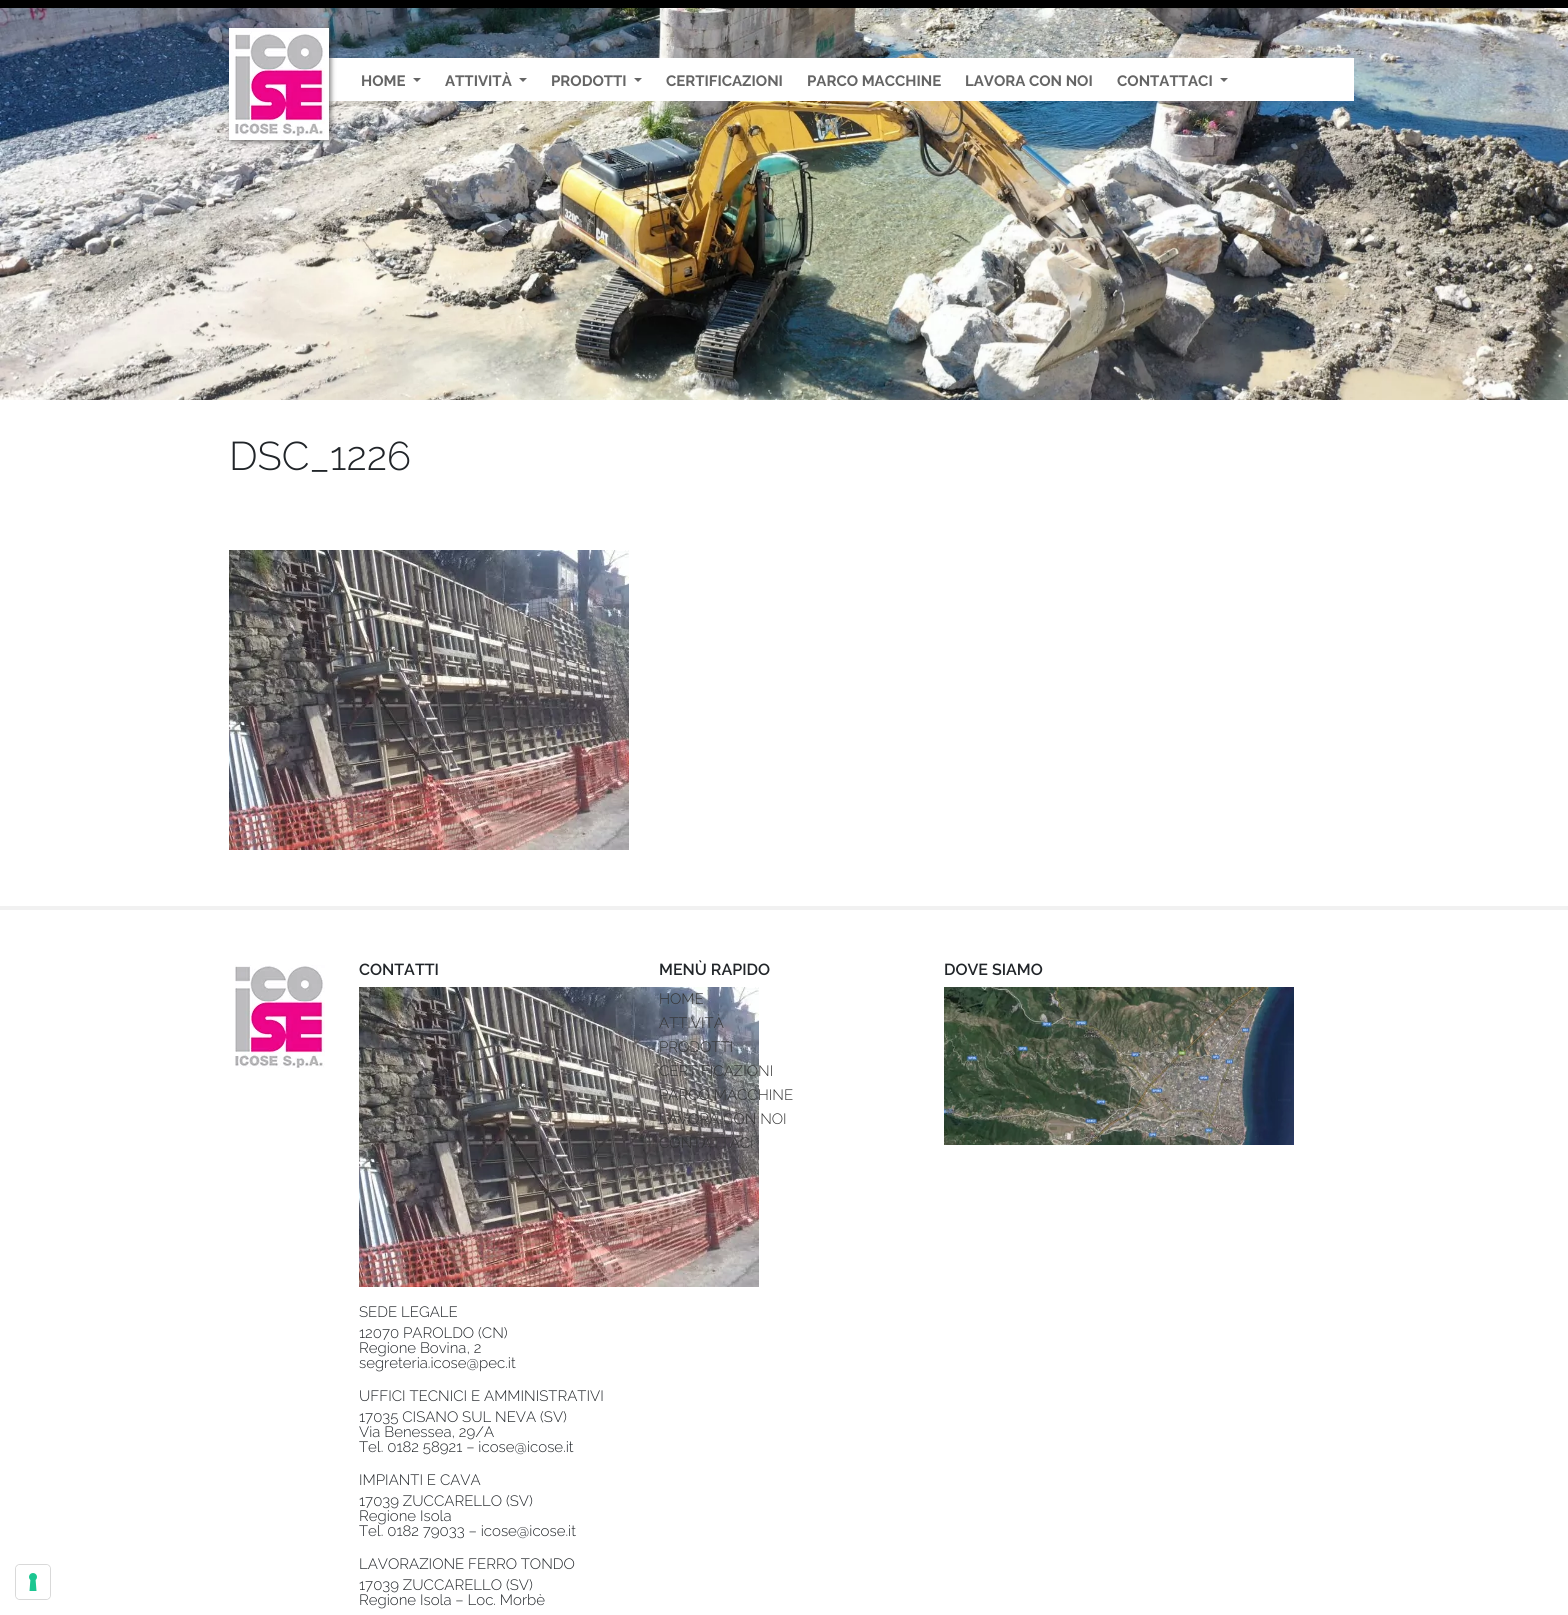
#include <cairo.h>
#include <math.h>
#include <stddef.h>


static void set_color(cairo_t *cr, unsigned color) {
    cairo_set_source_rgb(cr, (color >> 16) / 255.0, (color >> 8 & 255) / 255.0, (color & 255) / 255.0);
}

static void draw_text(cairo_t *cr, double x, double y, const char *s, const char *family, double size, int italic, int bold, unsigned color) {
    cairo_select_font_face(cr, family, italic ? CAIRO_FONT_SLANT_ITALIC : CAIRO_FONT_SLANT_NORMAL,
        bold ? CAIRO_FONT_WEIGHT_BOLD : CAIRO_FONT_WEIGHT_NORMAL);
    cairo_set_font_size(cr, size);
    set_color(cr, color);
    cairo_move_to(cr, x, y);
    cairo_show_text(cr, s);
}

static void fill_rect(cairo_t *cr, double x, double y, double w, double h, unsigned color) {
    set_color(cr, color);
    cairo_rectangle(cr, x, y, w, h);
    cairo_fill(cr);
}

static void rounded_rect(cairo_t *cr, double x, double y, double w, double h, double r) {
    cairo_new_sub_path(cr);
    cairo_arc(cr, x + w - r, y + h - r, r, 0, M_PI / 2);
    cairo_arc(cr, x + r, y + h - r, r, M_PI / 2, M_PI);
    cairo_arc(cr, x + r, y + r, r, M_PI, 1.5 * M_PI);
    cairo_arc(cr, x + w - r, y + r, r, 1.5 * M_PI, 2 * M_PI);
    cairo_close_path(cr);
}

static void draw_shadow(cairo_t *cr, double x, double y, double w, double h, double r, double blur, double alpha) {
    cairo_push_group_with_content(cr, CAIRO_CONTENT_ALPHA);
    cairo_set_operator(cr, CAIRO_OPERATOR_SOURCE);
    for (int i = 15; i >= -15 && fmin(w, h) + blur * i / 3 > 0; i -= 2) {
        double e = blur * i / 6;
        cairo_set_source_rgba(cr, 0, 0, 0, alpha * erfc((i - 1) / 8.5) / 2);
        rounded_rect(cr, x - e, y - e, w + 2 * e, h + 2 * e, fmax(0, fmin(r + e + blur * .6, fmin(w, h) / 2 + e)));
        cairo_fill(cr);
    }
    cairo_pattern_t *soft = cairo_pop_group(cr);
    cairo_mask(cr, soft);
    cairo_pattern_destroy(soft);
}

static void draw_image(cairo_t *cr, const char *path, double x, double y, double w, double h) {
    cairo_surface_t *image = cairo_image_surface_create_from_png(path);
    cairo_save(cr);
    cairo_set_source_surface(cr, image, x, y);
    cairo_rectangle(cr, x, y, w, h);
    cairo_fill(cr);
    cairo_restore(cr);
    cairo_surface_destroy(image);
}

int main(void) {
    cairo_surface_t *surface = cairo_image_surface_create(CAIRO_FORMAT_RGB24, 1568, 1615);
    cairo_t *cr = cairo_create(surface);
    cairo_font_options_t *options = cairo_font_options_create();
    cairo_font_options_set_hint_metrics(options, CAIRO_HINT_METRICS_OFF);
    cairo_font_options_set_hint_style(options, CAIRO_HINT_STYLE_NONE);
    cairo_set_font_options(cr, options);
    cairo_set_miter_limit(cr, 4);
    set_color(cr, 0xFFFFFF);
    cairo_paint(cr);
    draw_image(cr, "assets/img1.png", 0, 8, 1568, 392);
    fill_rect(cr, 0, 0, 1568, 8, 0x000000);
    fill_rect(cr, 329, 58, 1025, 43, 0xFFFFFF);
    set_color(cr, 0x000000);
    draw_shadow(cr, 231, 30, 100, 112, 0, 2.5, 0.5);
    draw_image(cr, "assets/img2.png", 229, 28, 100, 112);
    draw_text(cr, 361, 86, "HOME", "Raleway", 15, 0, 1, 0x656565);
    cairo_new_path(cr);
    cairo_move_to(cr, 413, 78);
    cairo_line_to(cr, 421, 78);
    cairo_line_to(cr, 417, 82);
    cairo_close_path(cr);
    cairo_fill(cr);
    draw_text(cr, 445, 86, "ATTIVITÀ", "Raleway", 15, 0, 1, 0x656565);
    cairo_new_path(cr);
    cairo_move_to(cr, 519, 78);
    cairo_line_to(cr, 527, 78);
    cairo_line_to(cr, 523, 82);
    cairo_close_path(cr);
    cairo_fill(cr);
    draw_text(cr, 551, 86, "PRODOTTI", "Raleway", 15, 0, 1, 0x656565);
    cairo_new_path(cr);
    cairo_move_to(cr, 634, 78);
    cairo_line_to(cr, 642, 78);
    cairo_line_to(cr, 638, 82);
    cairo_close_path(cr);
    cairo_fill(cr);
    draw_text(cr, 666, 86, "CERTIFICAZIONI", "Raleway", 15, 0, 1, 0x656565);
    draw_text(cr, 807, 86, "PARCO MACCHINE", "Raleway", 15, 0, 1, 0x656565);
    draw_text(cr, 965, 86, "LAVORA CON NOI", "Raleway", 15, 0, 1, 0x656565);
    draw_text(cr, 1117, 86, "CONTATTACI", "Raleway", 15, 0, 1, 0x656565);
    cairo_new_path(cr);
    cairo_move_to(cr, 1220, 78);
    cairo_line_to(cr, 1228, 78);
    cairo_line_to(cr, 1224, 82);
    cairo_close_path(cr);
    cairo_fill(cr);
    draw_text(cr, 229, 470, "DSC_1226", "Raleway Light", 40, 0, 0, 0x212529);
    draw_image(cr, "assets/img3.png", 229, 550, 400, 300);
    rounded_rect(cr, 15.5, 1564.5, 35, 35, 4.5);
    set_color(cr, 0xD9D9D9);
    cairo_set_line_width(cr, 1);
    cairo_stroke(cr);
    set_color(cr, 0xFFFFFF);
    rounded_rect(cr, 16, 1565, 34, 34, 4);
    cairo_fill(cr);
    draw_image(cr, "assets/img4.png", 29, 1573, 8, 18);
    fill_rect(cr, 0, 906, 1568, 4, 0xF1F1F1);
    draw_image(cr, "assets/img5.png", 235, 965, 90, 103);
    draw_text(cr, 359, 975, "CONTATTI", "Raleway SemiBold", 16, 0, 0, 0x212529);
    draw_image(cr, "assets/img3.png", 359, 987, 400, 300);
    draw_text(cr, 359, 1317, "SEDE LEGALE", "Raleway Light", 15, 0, 0, 0x212529);
    draw_text(cr, 359, 1338, "12070 PAROLDO (CN)", "Raleway Light", 15, 0, 0, 0x212529);
    draw_text(cr, 359, 1353, "Regione Bovina, 2", "Raleway Light", 15, 0, 0, 0x212529);
    draw_text(cr, 359, 1368, "segreteria.icose@pec.it", "Raleway Light", 15, 0, 0, 0x212529);
    draw_text(cr, 359, 1401, "UFFICI TECNICI E AMMINISTRATIVI", "Raleway Light", 15, 0, 0, 0x212529);
    draw_text(cr, 359, 1422, "17035 CISANO SUL NEVA (SV)", "Raleway Light", 15, 0, 0, 0x212529);
    draw_text(cr, 359, 1437, "Via Benessea, 29/A", "Raleway Light", 15, 0, 0, 0x212529);
    draw_text(cr, 359, 1452, "Tel. 0182 58921 – icose@icose.it", "Raleway Light", 15, 0, 0, 0x212529);
    draw_text(cr, 359, 1485, "IMPIANTI E CAVA", "Raleway Light", 15, 0, 0, 0x212529);
    draw_text(cr, 359, 1506, "17039 ZUCCARELLO (SV)", "Raleway Light", 15, 0, 0, 0x212529);
    draw_text(cr, 359, 1521, "Regione Isola", "Raleway Light", 15, 0, 0, 0x212529);
    draw_text(cr, 359, 1536, "Tel. 0182 79033 – icose@icose.it", "Raleway Light", 15, 0, 0, 0x212529);
    draw_text(cr, 359, 1569, "LAVORAZIONE FERRO TONDO", "Raleway Light", 15, 0, 0, 0x212529);
    draw_text(cr, 359, 1590, "17039 ZUCCARELLO (SV)", "Raleway Light", 15, 0, 0, 0x212529);
    draw_text(cr, 359, 1605, "Regione Isola – Loc. Morbè", "Raleway Light", 15, 0, 0, 0x212529);
    draw_text(cr, 659, 975, "MENÙ RAPIDO", "Raleway SemiBold", 16, 0, 0, 0x212529);
    draw_text(cr, 659, 1004, "HOME", "Raleway Light", 15, 0, 0, 0x333333);
    draw_text(cr, 659, 1028, "ATTIVITÀ", "Raleway Light", 15, 0, 0, 0x333333);
    draw_text(cr, 659, 1052, "PRODOTTI", "Raleway Light", 15, 0, 0, 0x333333);
    draw_text(cr, 659, 1076, "CERTIFICAZIONI", "Raleway Light", 15, 0, 0, 0x333333);
    draw_text(cr, 659, 1100, "PARCO MACCHINE", "Raleway Light", 15, 0, 0, 0x333333);
    draw_text(cr, 659, 1124, "LAVORA CON NOI", "Raleway Light", 15, 0, 0, 0x333333);
    draw_text(cr, 659, 1148, "CONTATTACI", "Raleway Light", 15, 0, 0, 0x333333);
    draw_text(cr, 944, 975, "DOVE SIAMO", "Raleway SemiBold", 16, 0, 0, 0x212529);
    draw_image(cr, "assets/img6.png", 944, 987, 350, 158);
    cairo_surface_write_to_png(surface, "output.png");
    cairo_font_options_destroy(options);
    cairo_destroy(cr);
    cairo_surface_destroy(surface);
    return 0;
}
